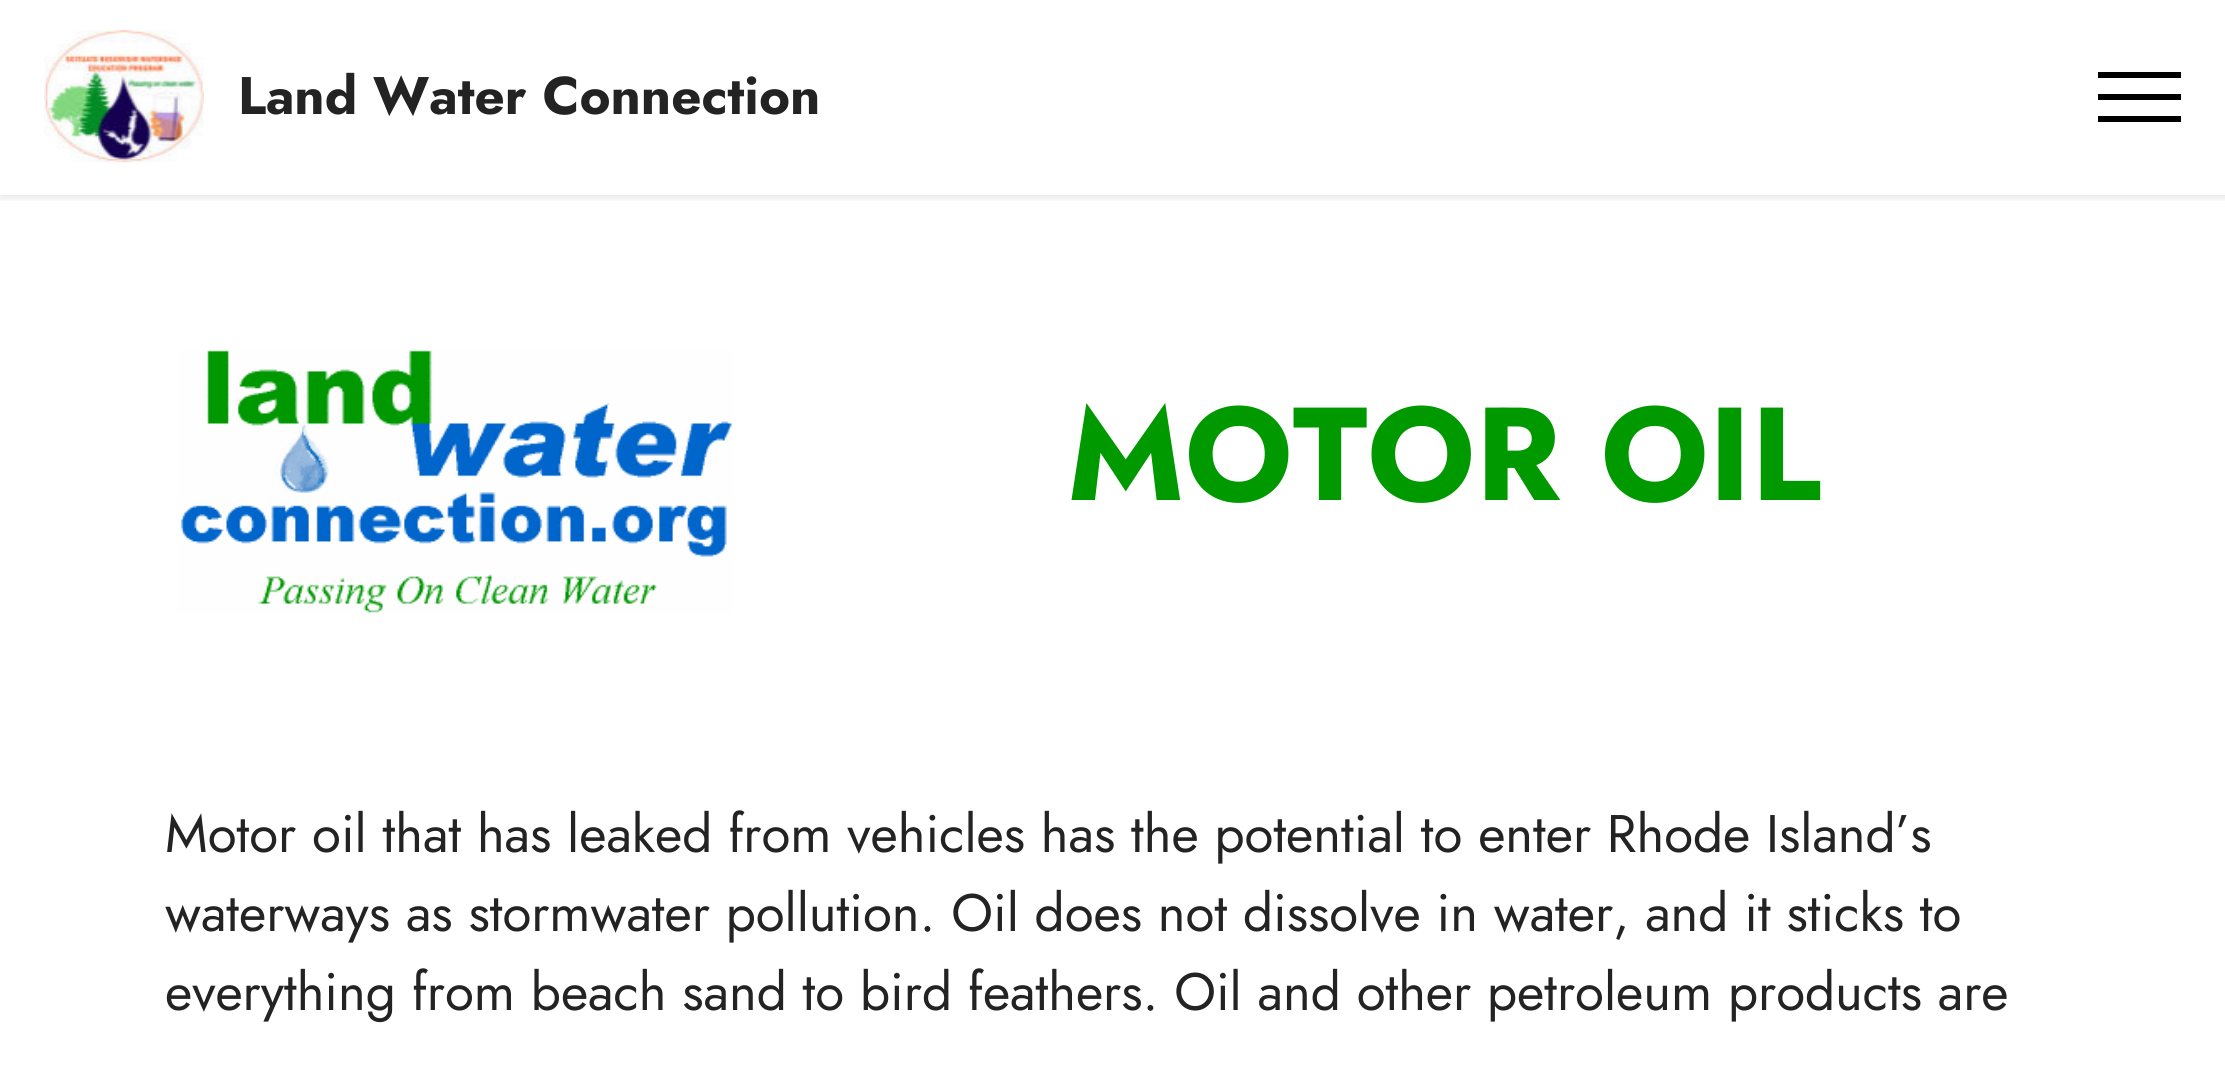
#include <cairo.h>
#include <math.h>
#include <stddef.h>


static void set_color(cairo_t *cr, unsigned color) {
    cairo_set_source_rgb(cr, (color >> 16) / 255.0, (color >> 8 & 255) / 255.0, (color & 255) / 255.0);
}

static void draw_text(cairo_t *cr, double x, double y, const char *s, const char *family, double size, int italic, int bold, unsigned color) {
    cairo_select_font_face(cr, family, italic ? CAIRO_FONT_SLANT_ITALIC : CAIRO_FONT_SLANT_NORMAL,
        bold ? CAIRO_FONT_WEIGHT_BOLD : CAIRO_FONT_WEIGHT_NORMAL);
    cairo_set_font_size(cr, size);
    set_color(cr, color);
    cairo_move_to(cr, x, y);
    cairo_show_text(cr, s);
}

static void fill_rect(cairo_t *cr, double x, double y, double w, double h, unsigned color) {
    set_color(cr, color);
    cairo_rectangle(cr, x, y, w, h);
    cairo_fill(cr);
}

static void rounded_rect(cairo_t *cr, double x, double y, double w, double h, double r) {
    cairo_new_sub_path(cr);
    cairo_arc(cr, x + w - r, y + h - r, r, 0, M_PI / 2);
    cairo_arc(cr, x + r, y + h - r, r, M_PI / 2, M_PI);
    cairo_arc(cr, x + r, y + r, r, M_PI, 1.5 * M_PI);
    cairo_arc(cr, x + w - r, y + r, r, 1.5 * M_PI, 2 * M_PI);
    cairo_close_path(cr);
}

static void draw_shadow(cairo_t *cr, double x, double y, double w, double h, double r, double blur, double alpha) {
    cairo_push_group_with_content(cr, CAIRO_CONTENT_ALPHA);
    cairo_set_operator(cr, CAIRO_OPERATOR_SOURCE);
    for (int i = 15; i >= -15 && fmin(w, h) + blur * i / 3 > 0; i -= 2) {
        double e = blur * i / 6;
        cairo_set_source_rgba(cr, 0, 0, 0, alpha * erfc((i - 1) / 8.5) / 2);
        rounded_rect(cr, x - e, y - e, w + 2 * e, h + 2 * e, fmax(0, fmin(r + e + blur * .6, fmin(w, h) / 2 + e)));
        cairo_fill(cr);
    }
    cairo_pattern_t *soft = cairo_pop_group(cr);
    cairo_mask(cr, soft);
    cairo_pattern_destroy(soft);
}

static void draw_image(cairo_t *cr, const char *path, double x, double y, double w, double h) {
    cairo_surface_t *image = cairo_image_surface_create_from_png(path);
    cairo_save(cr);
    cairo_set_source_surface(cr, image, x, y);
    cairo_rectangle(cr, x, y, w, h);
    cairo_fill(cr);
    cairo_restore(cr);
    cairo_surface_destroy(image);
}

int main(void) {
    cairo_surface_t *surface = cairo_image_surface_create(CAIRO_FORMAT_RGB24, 2225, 1068);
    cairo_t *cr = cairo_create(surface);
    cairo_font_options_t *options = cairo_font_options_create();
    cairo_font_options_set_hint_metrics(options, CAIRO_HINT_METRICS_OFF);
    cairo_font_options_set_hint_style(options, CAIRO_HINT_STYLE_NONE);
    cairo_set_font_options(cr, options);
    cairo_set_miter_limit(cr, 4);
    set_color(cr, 0xFFFFFF);
    cairo_paint(cr);
    cairo_save(cr);
    cairo_rectangle(cr, 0, 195, 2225, 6);
    cairo_clip(cr);
    set_color(cr, 0x000000);
    draw_shadow(cr, 0, 3, 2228, 195, 0, 4, 0.1);
    cairo_restore(cr);
    draw_image(cr, "assets/img1.png", 44, 30, 160, 133);
    draw_text(cr, 238, 114, "Land Water Connection", "Jost", 52.8, 0, 1, 0x232323);
    fill_rect(cr, 2098, 72, 83, 6, 0x000000);
    fill_rect(cr, 2098, 94, 83, 6, 0x000000);
    fill_rect(cr, 2098, 116, 83, 6, 0x000000);
    draw_image(cr, "assets/img2.png", 178, 350, 554, 263);
    draw_text(cr, 1067, 500, "MOTOR OIL", "Jost", 132, 0, 1, 0x009900);
    draw_text(cr, 165, 852, "Motor oil that has leaked from vehicles has the potential to enter Rhode Island’s", "Jost", 52.8, 0, 0, 0x232323);
    draw_text(cr, 165, 931, "waterways as stormwater pollution. Oil does not dissolve in water, and it sticks to", "Jost", 52.8, 0, 0, 0x232323);
    draw_text(cr, 165, 1010, "everything from beach sand to bird feathers. Oil and other petroleum products are", "Jost", 52.8, 0, 0, 0x232323);
    cairo_surface_write_to_png(surface, "output.png");
    cairo_font_options_destroy(options);
    cairo_destroy(cr);
    cairo_surface_destroy(surface);
    return 0;
}
